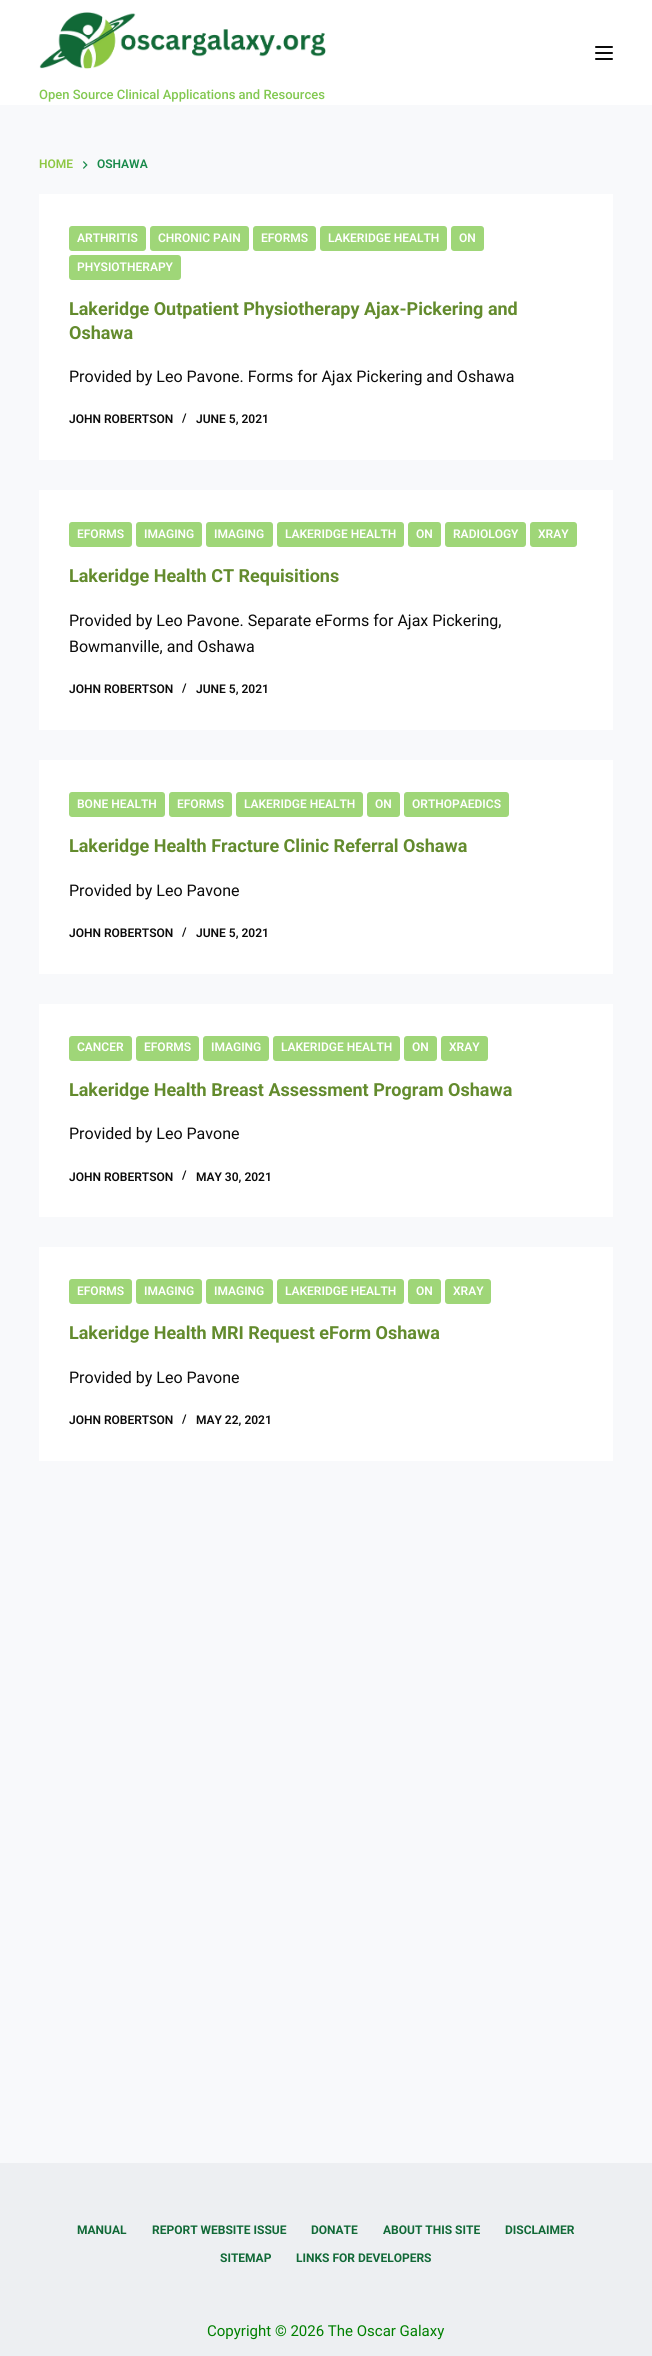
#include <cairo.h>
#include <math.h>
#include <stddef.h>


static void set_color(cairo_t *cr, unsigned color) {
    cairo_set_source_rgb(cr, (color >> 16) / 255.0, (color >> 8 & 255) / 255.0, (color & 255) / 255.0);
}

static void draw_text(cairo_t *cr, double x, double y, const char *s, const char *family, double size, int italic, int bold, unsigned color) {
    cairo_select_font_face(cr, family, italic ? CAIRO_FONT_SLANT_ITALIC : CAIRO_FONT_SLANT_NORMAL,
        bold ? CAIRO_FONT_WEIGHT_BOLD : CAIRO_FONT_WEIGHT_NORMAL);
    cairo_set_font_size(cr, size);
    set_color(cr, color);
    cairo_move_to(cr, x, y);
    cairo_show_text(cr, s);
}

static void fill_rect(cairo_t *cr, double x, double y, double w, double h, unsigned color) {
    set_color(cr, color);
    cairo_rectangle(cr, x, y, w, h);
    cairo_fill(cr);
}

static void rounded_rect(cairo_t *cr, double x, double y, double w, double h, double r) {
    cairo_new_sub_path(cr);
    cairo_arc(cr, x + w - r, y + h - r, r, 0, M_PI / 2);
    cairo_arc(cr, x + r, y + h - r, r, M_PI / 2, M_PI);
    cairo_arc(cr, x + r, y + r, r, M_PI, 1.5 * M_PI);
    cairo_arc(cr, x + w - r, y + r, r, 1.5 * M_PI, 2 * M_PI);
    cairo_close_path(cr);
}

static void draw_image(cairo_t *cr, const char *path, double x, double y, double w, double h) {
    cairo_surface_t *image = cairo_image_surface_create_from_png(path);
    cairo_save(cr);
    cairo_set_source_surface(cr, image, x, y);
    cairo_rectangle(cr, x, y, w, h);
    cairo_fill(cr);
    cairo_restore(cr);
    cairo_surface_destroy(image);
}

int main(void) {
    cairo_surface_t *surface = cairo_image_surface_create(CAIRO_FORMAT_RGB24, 652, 2356);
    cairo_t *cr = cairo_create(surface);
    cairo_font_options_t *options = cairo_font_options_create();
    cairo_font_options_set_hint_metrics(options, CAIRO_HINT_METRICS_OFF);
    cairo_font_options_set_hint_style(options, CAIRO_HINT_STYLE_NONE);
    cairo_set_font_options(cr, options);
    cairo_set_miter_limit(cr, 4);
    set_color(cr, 0xF8F9FB);
    cairo_paint(cr);
    fill_rect(cr, 0, 0, 652, 105, 0xFFFFFF);
    set_color(cr, 0x0B0B0B);
    rounded_rect(cr, 595, 46, 18, 2, 1);
    cairo_fill(cr);
    rounded_rect(cr, 595, 52, 18, 2, 1);
    cairo_fill(cr);
    rounded_rect(cr, 595, 58, 18, 2, 1);
    cairo_fill(cr);
    draw_image(cr, "assets/img1.png", 39, 12, 287, 57);
    draw_text(cr, 39, 99, "Open Source Clinical Applications and Resources", "Roboto Medium", 13, 0, 0, 0x82C850);
    draw_text(cr, 39, 168, "HOME", "Roboto SemiBold", 12, 0, 0, 0x8DC742);
    draw_image(cr, "assets/img2.png", 83, 161, 5, 8);
    draw_text(cr, 97, 168, "OSHAWA", "Roboto SemiBold", 12, 0, 0, 0x188A4A);
    fill_rect(cr, 39, 194, 574, 266, 0xFFFFFF);
    set_color(cr, 0x9FD678);
    rounded_rect(cr, 69, 226, 77, 25, 3);
    cairo_fill(cr);
    draw_text(cr, 77, 242, "ARTHRITIS", "Roboto SemiBold", 12, 0, 0, 0xFFFFFF);
    set_color(cr, 0x9FD678);
    rounded_rect(cr, 150, 226, 99, 25, 3);
    cairo_fill(cr);
    draw_text(cr, 158, 242, "CHRONIC PAIN", "Roboto SemiBold", 12, 0, 0, 0xFFFFFF);
    set_color(cr, 0x9FD678);
    rounded_rect(cr, 253, 226, 63, 25, 3);
    cairo_fill(cr);
    draw_text(cr, 261, 242, "EFORMS", "Roboto SemiBold", 12, 0, 0, 0xFFFFFF);
    set_color(cr, 0x9FD678);
    rounded_rect(cr, 320, 226, 127, 25, 3);
    cairo_fill(cr);
    draw_text(cr, 328, 242, "LAKERIDGE HEALTH", "Roboto SemiBold", 12, 0, 0, 0xFFFFFF);
    set_color(cr, 0x9FD678);
    rounded_rect(cr, 451, 226, 33, 25, 3);
    cairo_fill(cr);
    draw_text(cr, 459, 242, "ON", "Roboto SemiBold", 12, 0, 0, 0xFFFFFF);
    set_color(cr, 0x9FD678);
    rounded_rect(cr, 69, 255, 112, 25, 3);
    cairo_fill(cr);
    draw_text(cr, 77, 271, "PHYSIOTHERAPY", "Roboto SemiBold", 12, 0, 0, 0xFFFFFF);
    draw_text(cr, 69, 315, "Lakeridge Outpatient Physiotherapy Ajax-Pickering and", "Roboto", 18, 0, 1, 0x638B2D);
    draw_text(cr, 69, 339, "Oshawa", "Roboto", 18, 0, 1, 0x638B2D);
    draw_text(cr, 69, 382, "Provided by Leo Pavone. Forms for Ajax Pickering and Oshawa", "Roboto", 16, 0, 0, 0x0B0B0B);
    draw_text(cr, 69, 423, "JOHN ROBERTSON", "Roboto SemiBold", 12, 0, 0, 0x0B0B0B);
    draw_text(cr, 182, 422, "/", "Roboto SemiBold", 12, 0, 0, 0x0B0B0B);
    draw_text(cr, 196, 423, "JUNE 5, 2021", "Roboto SemiBold", 12, 0, 0, 0x0B0B0B);
    fill_rect(cr, 39, 490, 574, 240, 0xFFFFFF);
    set_color(cr, 0x9FD678);
    rounded_rect(cr, 69, 522, 63, 25, 3);
    cairo_fill(cr);
    draw_text(cr, 77, 538, "EFORMS", "Roboto SemiBold", 12, 0, 0, 0xFFFFFF);
    set_color(cr, 0x9FD678);
    rounded_rect(cr, 136, 522, 66, 25, 3);
    cairo_fill(cr);
    draw_text(cr, 144, 538, "IMAGING", "Roboto SemiBold", 12, 0, 0, 0xFFFFFF);
    set_color(cr, 0x9FD678);
    rounded_rect(cr, 206, 522, 67, 25, 3);
    cairo_fill(cr);
    draw_text(cr, 214, 538, "IMAGING", "Roboto SemiBold", 12, 0, 0, 0xFFFFFF);
    set_color(cr, 0x9FD678);
    rounded_rect(cr, 277, 522, 127, 25, 3);
    cairo_fill(cr);
    draw_text(cr, 285, 538, "LAKERIDGE HEALTH", "Roboto SemiBold", 12, 0, 0, 0xFFFFFF);
    set_color(cr, 0x9FD678);
    rounded_rect(cr, 408, 522, 33, 25, 3);
    cairo_fill(cr);
    draw_text(cr, 416, 538, "ON", "Roboto SemiBold", 12, 0, 0, 0xFFFFFF);
    set_color(cr, 0x9FD678);
    rounded_rect(cr, 445, 522, 81, 25, 3);
    cairo_fill(cr);
    draw_text(cr, 453, 538, "RADIOLOGY", "Roboto SemiBold", 12, 0, 0, 0xFFFFFF);
    set_color(cr, 0x9FD678);
    rounded_rect(cr, 530, 522, 47, 25, 3);
    cairo_fill(cr);
    draw_text(cr, 538, 538, "XRAY", "Roboto SemiBold", 12, 0, 0, 0xFFFFFF);
    draw_text(cr, 69, 582, "Lakeridge Health CT Requisitions", "Roboto", 18, 0, 1, 0x638B2D);
    draw_text(cr, 69, 626, "Provided by Leo Pavone. Separate eForms for Ajax Pickering,", "Roboto", 16, 0, 0, 0x0B0B0B);
    draw_text(cr, 69, 652, "Bowmanville, and Oshawa", "Roboto", 16, 0, 0, 0x0B0B0B);
    draw_text(cr, 69, 693, "JOHN ROBERTSON", "Roboto SemiBold", 12, 0, 0, 0x0B0B0B);
    draw_text(cr, 182, 692, "/", "Roboto SemiBold", 12, 0, 0, 0x0B0B0B);
    draw_text(cr, 196, 693, "JUNE 5, 2021", "Roboto SemiBold", 12, 0, 0, 0x0B0B0B);
    fill_rect(cr, 39, 760, 574, 214, 0xFFFFFF);
    set_color(cr, 0x9FD678);
    rounded_rect(cr, 69, 792, 96, 25, 3);
    cairo_fill(cr);
    draw_text(cr, 77, 808, "BONE HEALTH", "Roboto SemiBold", 12, 0, 0, 0xFFFFFF);
    set_color(cr, 0x9FD678);
    rounded_rect(cr, 169, 792, 63, 25, 3);
    cairo_fill(cr);
    draw_text(cr, 177, 808, "EFORMS", "Roboto SemiBold", 12, 0, 0, 0xFFFFFF);
    set_color(cr, 0x9FD678);
    rounded_rect(cr, 236, 792, 127, 25, 3);
    cairo_fill(cr);
    draw_text(cr, 244, 808, "LAKERIDGE HEALTH", "Roboto SemiBold", 12, 0, 0, 0xFFFFFF);
    set_color(cr, 0x9FD678);
    rounded_rect(cr, 367, 792, 33, 25, 3);
    cairo_fill(cr);
    draw_text(cr, 375, 808, "ON", "Roboto SemiBold", 12, 0, 0, 0xFFFFFF);
    set_color(cr, 0x9FD678);
    rounded_rect(cr, 404, 792, 105, 25, 3);
    cairo_fill(cr);
    draw_text(cr, 412, 808, "ORTHOPAEDICS", "Roboto SemiBold", 12, 0, 0, 0xFFFFFF);
    draw_text(cr, 69, 852, "Lakeridge Health Fracture Clinic Referral Oshawa", "Roboto", 18, 0, 1, 0x638B2D);
    draw_text(cr, 69, 896, "Provided by Leo Pavone", "Roboto", 16, 0, 0, 0x0B0B0B);
    draw_text(cr, 69, 937, "JOHN ROBERTSON", "Roboto SemiBold", 12, 0, 0, 0x0B0B0B);
    draw_text(cr, 182, 936, "/", "Roboto SemiBold", 12, 0, 0, 0x0B0B0B);
    draw_text(cr, 196, 937, "JUNE 5, 2021", "Roboto SemiBold", 12, 0, 0, 0x0B0B0B);
    fill_rect(cr, 39, 1004, 574, 213, 0xFFFFFF);
    set_color(cr, 0x9FD678);
    rounded_rect(cr, 69, 1036, 63, 25, 3);
    cairo_fill(cr);
    draw_text(cr, 77, 1051, "CANCER", "Roboto SemiBold", 12, 0, 0, 0xFFFFFF);
    set_color(cr, 0x9FD678);
    rounded_rect(cr, 136, 1036, 63, 25, 3);
    cairo_fill(cr);
    draw_text(cr, 144, 1051, "EFORMS", "Roboto SemiBold", 12, 0, 0, 0xFFFFFF);
    set_color(cr, 0x9FD678);
    rounded_rect(cr, 203, 1036, 66, 25, 3);
    cairo_fill(cr);
    draw_text(cr, 211, 1051, "IMAGING", "Roboto SemiBold", 12, 0, 0, 0xFFFFFF);
    set_color(cr, 0x9FD678);
    rounded_rect(cr, 273, 1036, 127, 25, 3);
    cairo_fill(cr);
    draw_text(cr, 281, 1051, "LAKERIDGE HEALTH", "Roboto SemiBold", 12, 0, 0, 0xFFFFFF);
    set_color(cr, 0x9FD678);
    rounded_rect(cr, 404, 1036, 33, 25, 3);
    cairo_fill(cr);
    draw_text(cr, 412, 1051, "ON", "Roboto SemiBold", 12, 0, 0, 0xFFFFFF);
    set_color(cr, 0x9FD678);
    rounded_rect(cr, 441, 1036, 47, 25, 3);
    cairo_fill(cr);
    draw_text(cr, 449, 1051, "XRAY", "Roboto SemiBold", 12, 0, 0, 0xFFFFFF);
    draw_text(cr, 69, 1096, "Lakeridge Health Breast Assessment Program Oshawa", "Roboto", 18, 0, 1, 0x638B2D);
    draw_text(cr, 69, 1139, "Provided by Leo Pavone", "Roboto", 16, 0, 0, 0x0B0B0B);
    draw_text(cr, 69, 1181, "JOHN ROBERTSON", "Roboto SemiBold", 12, 0, 0, 0x0B0B0B);
    draw_text(cr, 182, 1179, "/", "Roboto SemiBold", 12, 0, 0, 0x0B0B0B);
    draw_text(cr, 196, 1181, "MAY 30, 2021", "Roboto SemiBold", 12, 0, 0, 0x0B0B0B);
    fill_rect(cr, 39, 1247, 574, 214, 0xFFFFFF);
    set_color(cr, 0x9FD678);
    rounded_rect(cr, 69, 1279, 63, 25, 3);
    cairo_fill(cr);
    draw_text(cr, 77, 1295, "EFORMS", "Roboto SemiBold", 12, 0, 0, 0xFFFFFF);
    set_color(cr, 0x9FD678);
    rounded_rect(cr, 136, 1279, 66, 25, 3);
    cairo_fill(cr);
    draw_text(cr, 144, 1295, "IMAGING", "Roboto SemiBold", 12, 0, 0, 0xFFFFFF);
    set_color(cr, 0x9FD678);
    rounded_rect(cr, 206, 1279, 67, 25, 3);
    cairo_fill(cr);
    draw_text(cr, 214, 1295, "IMAGING", "Roboto SemiBold", 12, 0, 0, 0xFFFFFF);
    set_color(cr, 0x9FD678);
    rounded_rect(cr, 277, 1279, 127, 25, 3);
    cairo_fill(cr);
    draw_text(cr, 285, 1295, "LAKERIDGE HEALTH", "Roboto SemiBold", 12, 0, 0, 0xFFFFFF);
    set_color(cr, 0x9FD678);
    rounded_rect(cr, 408, 1279, 33, 25, 3);
    cairo_fill(cr);
    draw_text(cr, 416, 1295, "ON", "Roboto SemiBold", 12, 0, 0, 0xFFFFFF);
    set_color(cr, 0x9FD678);
    rounded_rect(cr, 445, 1279, 46, 25, 3);
    cairo_fill(cr);
    draw_text(cr, 453, 1295, "XRAY", "Roboto SemiBold", 12, 0, 0, 0xFFFFFF);
    draw_text(cr, 69, 1339, "Lakeridge Health MRI Request eForm Oshawa", "Roboto", 18, 0, 1, 0x638B2D);
    draw_text(cr, 69, 1383, "Provided by Leo Pavone", "Roboto", 16, 0, 0, 0x0B0B0B);
    draw_text(cr, 69, 1424, "JOHN ROBERTSON", "Roboto SemiBold", 12, 0, 0, 0x0B0B0B);
    draw_text(cr, 182, 1423, "/", "Roboto SemiBold", 12, 0, 0, 0x0B0B0B);
    draw_text(cr, 196, 1424, "MAY 22, 2021", "Roboto SemiBold", 12, 0, 0, 0x0B0B0B);
    fill_rect(cr, 0, 2163, 652, 193, 0xEDEFF2);
    draw_text(cr, 77, 2234, "MANUAL", "Roboto", 12, 0, 1, 0x116937);
    draw_text(cr, 152, 2234, "REPORT WEBSITE ISSUE", "Roboto", 12, 0, 1, 0x116937);
    draw_text(cr, 311, 2234, "DONATE", "Roboto", 12, 0, 1, 0x116937);
    draw_text(cr, 383, 2234, "ABOUT THIS SITE", "Roboto", 12, 0, 1, 0x116937);
    draw_text(cr, 505, 2234, "DISCLAIMER", "Roboto", 12, 0, 1, 0x116937);
    draw_text(cr, 220, 2262, "SITEMAP", "Roboto", 12, 0, 1, 0x116937);
    draw_text(cr, 296, 2262, "LINKS FOR DEVELOPERS", "Roboto", 12, 0, 1, 0x116937);
    draw_text(cr, 207, 2336, "Copyright © 2026 The Oscar Galaxy", "Roboto", 15, 0, 0, 0x008000);
    cairo_surface_write_to_png(surface, "output.png");
    cairo_font_options_destroy(options);
    cairo_destroy(cr);
    cairo_surface_destroy(surface);
    return 0;
}
